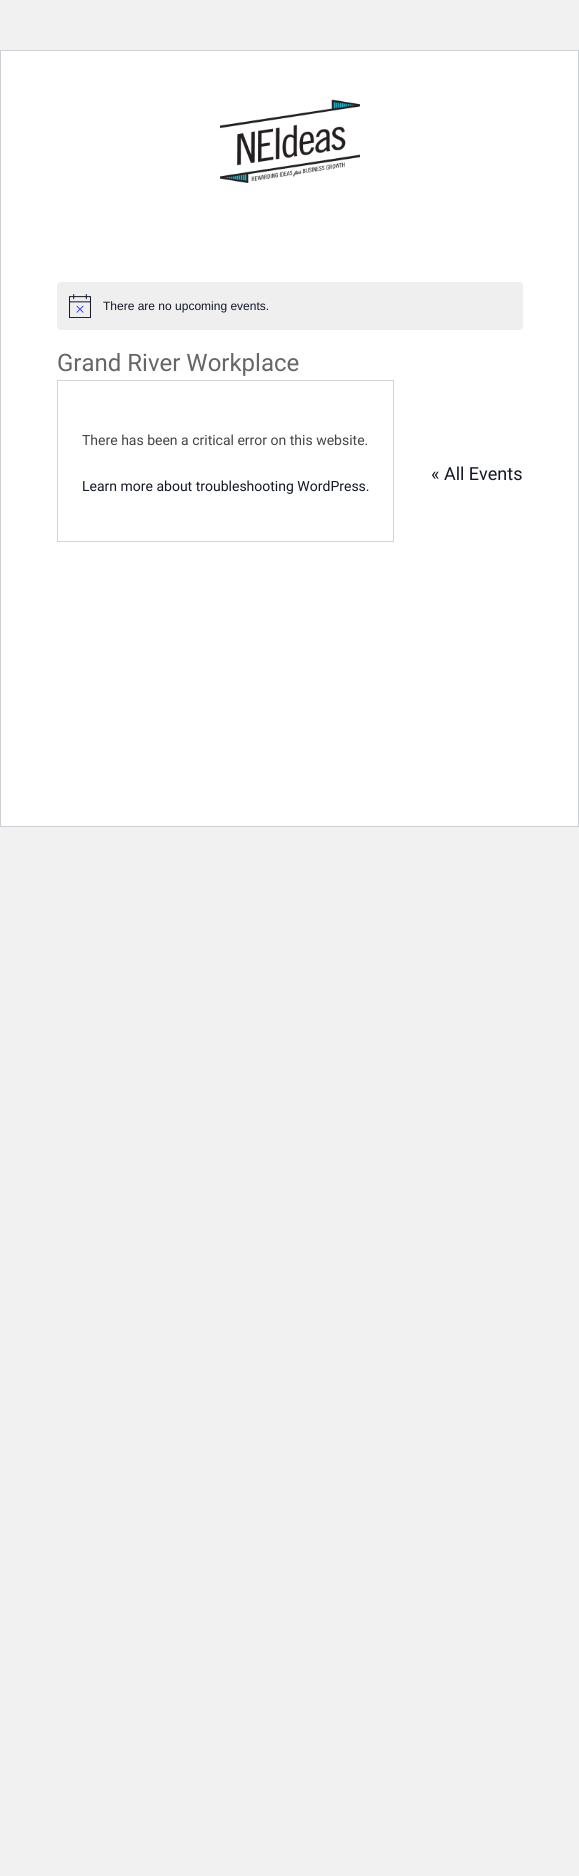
#include <cairo.h>
#include <math.h>
#include <stddef.h>


static void set_color(cairo_t *cr, unsigned color) {
    cairo_set_source_rgb(cr, (color >> 16) / 255.0, (color >> 8 & 255) / 255.0, (color & 255) / 255.0);
}

static void draw_text(cairo_t *cr, double x, double y, const char *s, const char *family, double size, int italic, int bold, unsigned color) {
    cairo_select_font_face(cr, family, italic ? CAIRO_FONT_SLANT_ITALIC : CAIRO_FONT_SLANT_NORMAL,
        bold ? CAIRO_FONT_WEIGHT_BOLD : CAIRO_FONT_WEIGHT_NORMAL);
    cairo_set_font_size(cr, size);
    set_color(cr, color);
    cairo_move_to(cr, x, y);
    cairo_show_text(cr, s);
}

static void rounded_rect(cairo_t *cr, double x, double y, double w, double h, double r) {
    cairo_new_sub_path(cr);
    cairo_arc(cr, x + w - r, y + h - r, r, 0, M_PI / 2);
    cairo_arc(cr, x + r, y + h - r, r, M_PI / 2, M_PI);
    cairo_arc(cr, x + r, y + r, r, M_PI, 1.5 * M_PI);
    cairo_arc(cr, x + w - r, y + r, r, 1.5 * M_PI, 2 * M_PI);
    cairo_close_path(cr);
}

static void draw_image(cairo_t *cr, const char *path, double x, double y, double w, double h) {
    cairo_surface_t *image = cairo_image_surface_create_from_png(path);
    cairo_save(cr);
    cairo_set_source_surface(cr, image, x, y);
    cairo_rectangle(cr, x, y, w, h);
    cairo_fill(cr);
    cairo_restore(cr);
    cairo_surface_destroy(image);
}

int main(void) {
    cairo_surface_t *surface = cairo_image_surface_create(CAIRO_FORMAT_RGB24, 579, 1876);
    cairo_t *cr = cairo_create(surface);
    cairo_font_options_t *options = cairo_font_options_create();
    cairo_font_options_set_hint_metrics(options, CAIRO_HINT_METRICS_OFF);
    cairo_font_options_set_hint_style(options, CAIRO_HINT_STYLE_NONE);
    cairo_set_font_options(cr, options);
    cairo_set_miter_limit(cr, 4);
    set_color(cr, 0xF1F1F1);
    cairo_paint(cr);
    set_color(cr, 0xFFFFFF);
    cairo_rectangle(cr, 0.5, 50.5, 578, 776);
    cairo_fill_preserve(cr);
    set_color(cr, 0xCCD0D4);
    cairo_set_line_width(cr, 1);
    cairo_stroke(cr);
    draw_image(cr, "assets/img1.png", 220, 99, 140, 84);
    set_color(cr, 0xEFEFF0);
    rounded_rect(cr, 57, 282, 466, 48, 4);
    cairo_fill(cr);
    draw_image(cr, "assets/img2.png", 69, 294, 22, 24);
    draw_text(cr, 103, 310, "There are no upcoming events.", "Liberation Sans", 12, 0, 0, 0x141827);
    draw_text(cr, 57, 371, "Grand River Workplace", "Roboto", 24, 0, 0, 0x666666);
    cairo_rectangle(cr, 57.5, 380.5, 336, 161);
    set_color(cr, 0xD5D5D5);
    cairo_stroke(cr);
    draw_text(cr, 82, 445, "There has been a critical error on this website.", "Roboto", 14, 0, 0, 0x444444);
    draw_text(cr, 82, 491, "Learn more about troubleshooting WordPress.", "Roboto", 14, 0, 0, 0x141827);
    draw_text(cr, 431, 480, "« All Events", "Roboto", 18, 0, 0, 0x141827);
    cairo_surface_write_to_png(surface, "output.png");
    cairo_font_options_destroy(options);
    cairo_destroy(cr);
    cairo_surface_destroy(surface);
    return 0;
}
